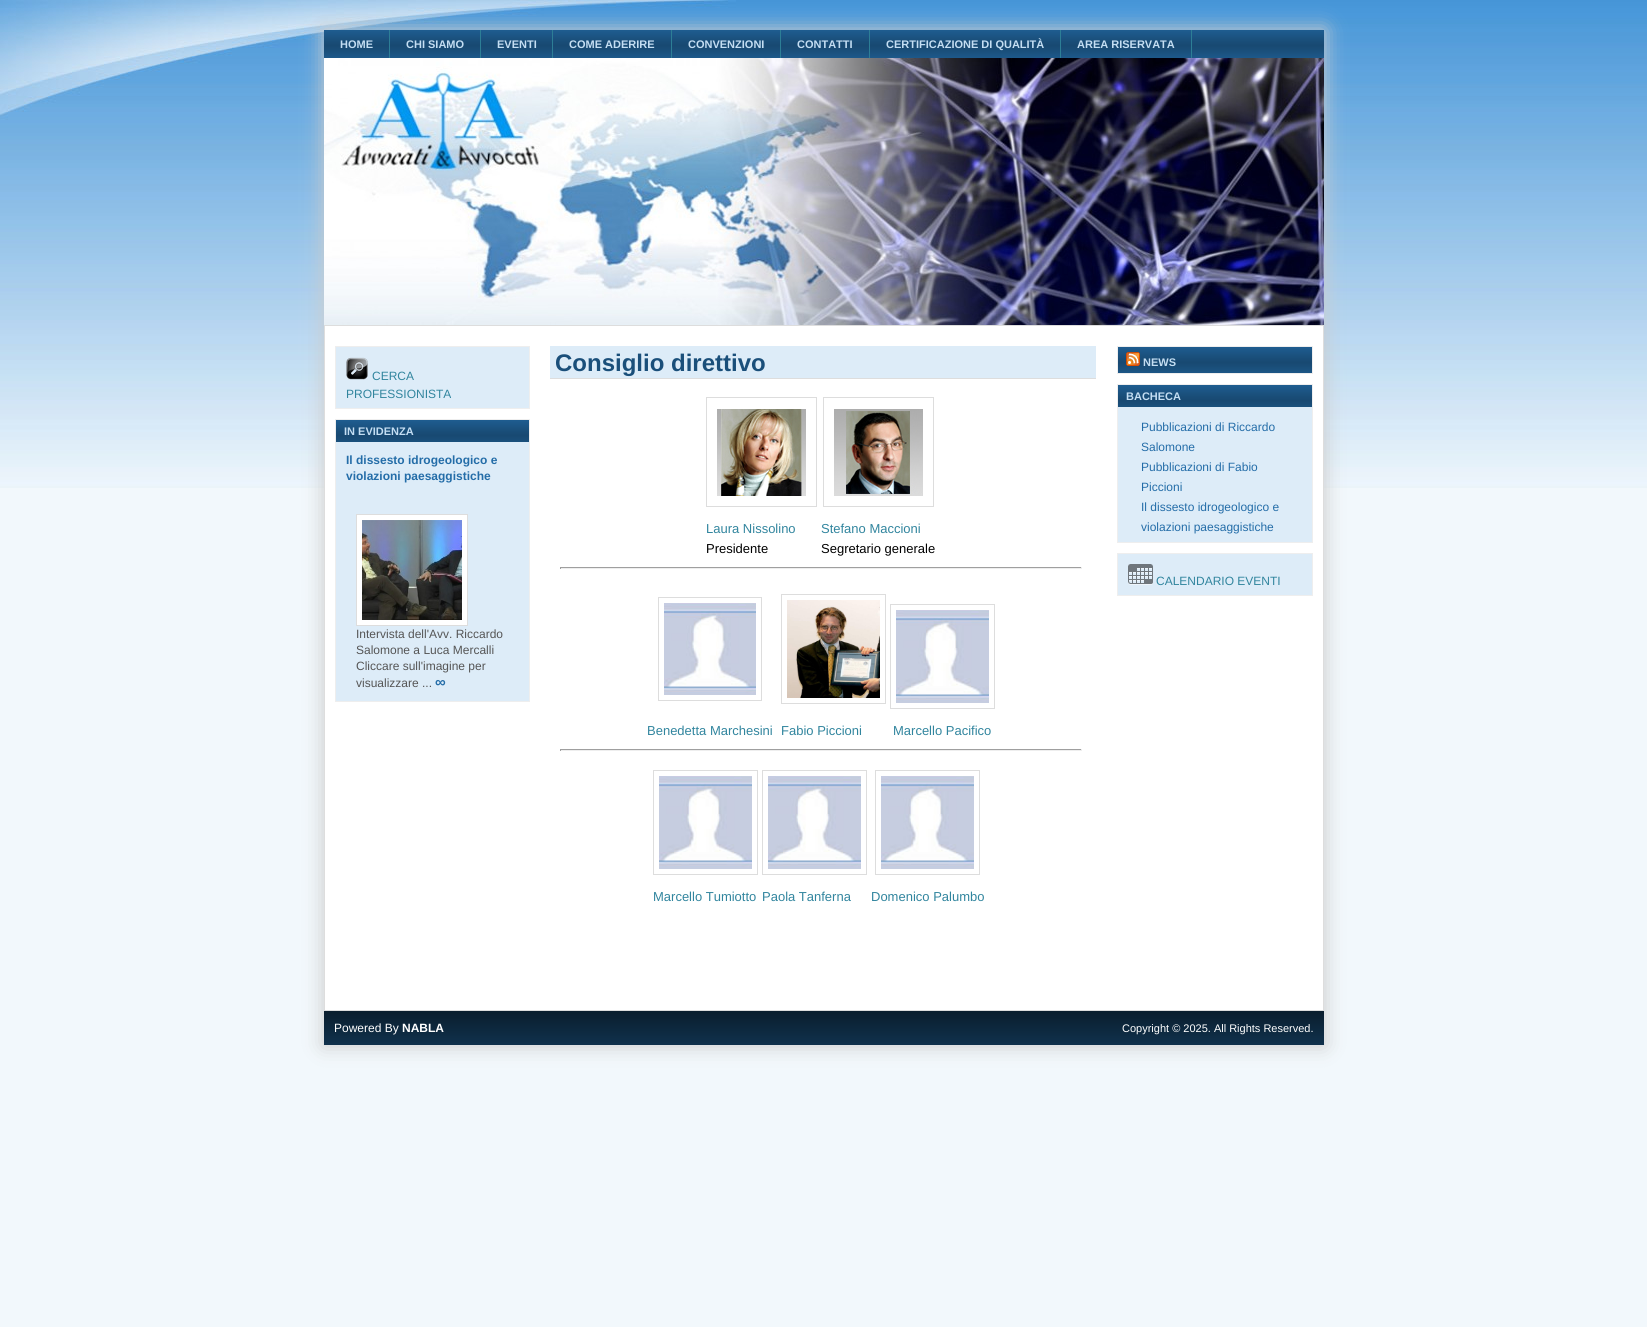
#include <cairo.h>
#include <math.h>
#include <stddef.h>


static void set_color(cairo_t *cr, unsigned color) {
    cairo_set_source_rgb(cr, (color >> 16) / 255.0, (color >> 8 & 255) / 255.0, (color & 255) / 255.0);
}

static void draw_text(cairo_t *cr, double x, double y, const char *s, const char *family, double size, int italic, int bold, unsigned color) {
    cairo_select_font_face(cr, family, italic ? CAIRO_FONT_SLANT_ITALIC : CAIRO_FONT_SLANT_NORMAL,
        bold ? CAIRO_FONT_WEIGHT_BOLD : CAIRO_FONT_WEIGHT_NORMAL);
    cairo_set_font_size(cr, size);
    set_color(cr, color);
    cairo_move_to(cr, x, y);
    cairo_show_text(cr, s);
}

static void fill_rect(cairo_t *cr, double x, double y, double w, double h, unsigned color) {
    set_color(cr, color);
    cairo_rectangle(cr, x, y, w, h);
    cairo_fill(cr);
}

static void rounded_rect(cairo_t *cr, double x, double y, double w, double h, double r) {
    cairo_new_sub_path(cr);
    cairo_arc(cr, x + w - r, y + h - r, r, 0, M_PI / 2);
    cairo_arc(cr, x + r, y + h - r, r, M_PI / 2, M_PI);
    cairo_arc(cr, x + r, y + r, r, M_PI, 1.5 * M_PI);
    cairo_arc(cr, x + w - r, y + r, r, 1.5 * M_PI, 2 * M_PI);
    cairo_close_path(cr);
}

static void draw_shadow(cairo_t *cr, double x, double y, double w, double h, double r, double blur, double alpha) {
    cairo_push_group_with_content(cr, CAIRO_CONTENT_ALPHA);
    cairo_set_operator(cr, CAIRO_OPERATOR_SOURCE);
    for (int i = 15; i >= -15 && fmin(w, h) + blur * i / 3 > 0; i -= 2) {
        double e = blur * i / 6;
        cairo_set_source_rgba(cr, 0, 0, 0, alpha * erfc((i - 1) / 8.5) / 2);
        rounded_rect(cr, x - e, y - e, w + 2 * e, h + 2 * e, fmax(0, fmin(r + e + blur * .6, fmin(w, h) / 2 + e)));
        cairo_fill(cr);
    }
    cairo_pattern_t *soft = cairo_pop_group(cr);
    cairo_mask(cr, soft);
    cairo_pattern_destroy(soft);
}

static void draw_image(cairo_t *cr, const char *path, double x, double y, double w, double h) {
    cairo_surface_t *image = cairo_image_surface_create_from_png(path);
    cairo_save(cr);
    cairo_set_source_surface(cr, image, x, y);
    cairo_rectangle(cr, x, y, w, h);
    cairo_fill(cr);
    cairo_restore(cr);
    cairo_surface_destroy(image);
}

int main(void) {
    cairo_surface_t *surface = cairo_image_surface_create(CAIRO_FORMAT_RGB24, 1647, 1327);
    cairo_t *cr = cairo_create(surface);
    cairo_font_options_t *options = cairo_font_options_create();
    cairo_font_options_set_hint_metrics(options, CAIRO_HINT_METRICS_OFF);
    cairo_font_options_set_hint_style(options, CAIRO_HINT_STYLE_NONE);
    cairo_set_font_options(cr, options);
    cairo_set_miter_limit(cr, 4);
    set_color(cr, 0xF2F8FC);
    cairo_paint(cr);
    draw_image(cr, "assets/img1.png", 0, 0, 1647, 488);
    set_color(cr, 0xCCCCCC);
    draw_shadow(cr, 323, 29, 1002, 1017, 0, 10, 1);
    draw_image(cr, "assets/img2.png", 324, 30, 1000, 28);
    fill_rect(cr, 389, 30, 1, 28, 0x2D7E96);
    draw_text(cr, 340, 48, "HOME", "Liberation Sans", 11, 0, 1, 0xC4DEF3);
    fill_rect(cr, 480, 30, 1, 28, 0x2D7E96);
    draw_text(cr, 406, 48, "CHI SIAMO", "Liberation Sans", 11, 0, 1, 0xC4DEF3);
    fill_rect(cr, 552, 30, 1, 28, 0x2D7E96);
    draw_text(cr, 497, 48, "EVENTI", "Liberation Sans", 11, 0, 1, 0xC4DEF3);
    fill_rect(cr, 671, 30, 1, 28, 0x2D7E96);
    draw_text(cr, 569, 48, "COME ADERIRE", "Liberation Sans", 11, 0, 1, 0xC4DEF3);
    fill_rect(cr, 780, 30, 1, 28, 0x2D7E96);
    draw_text(cr, 688, 48, "CONVENZIONI", "Liberation Sans", 11, 0, 1, 0xC4DEF3);
    fill_rect(cr, 869, 30, 1, 28, 0x2D7E96);
    draw_text(cr, 797, 48, "CONTATTI", "Liberation Sans", 11, 0, 1, 0xC4DEF3);
    fill_rect(cr, 1060, 30, 1, 28, 0x2D7E96);
    draw_text(cr, 886, 48, "CERTIFICAZIONE DI QUALITÀ", "Liberation Sans", 11, 0, 1, 0xC4DEF3);
    fill_rect(cr, 1191, 30, 1, 28, 0x2D7E96);
    draw_text(cr, 1077, 48, "AREA RISERVATA", "Liberation Sans", 11, 0, 1, 0xC4DEF3);
    draw_image(cr, "assets/img3.png", 324, 58, 1000, 267);
    set_color(cr, 0xFFFFFF);
    cairo_rectangle(cr, 324.5, 325.5, 999, 685);
    cairo_fill_preserve(cr);
    set_color(cr, 0xDDDDDD);
    cairo_set_line_width(cr, 1);
    cairo_stroke(cr);
    set_color(cr, 0xDDECF8);
    cairo_rectangle(cr, 335.5, 346.5, 194, 62);
    cairo_fill_preserve(cr);
    set_color(cr, 0xEEEEEE);
    cairo_stroke(cr);
    draw_image(cr, "assets/img4.png", 346, 357, 22, 23);
    draw_text(cr, 372, 380, "CERCA", "Liberation Sans", 12, 0, 0, 0x31859E);
    draw_text(cr, 346, 398, "PROFESSIONISTA", "Liberation Sans", 12, 0, 0, 0x31859E);
    fill_rect(cr, 336, 442, 193, 259, 0xDDECF8);
    cairo_rectangle(cr, 335.5, 419.5, 194, 282);
    set_color(cr, 0xEEEEEE);
    cairo_stroke(cr);
    draw_image(cr, "assets/img5.png", 336, 420, 193, 22);
    draw_text(cr, 344, 435, "IN EVIDENZA", "Liberation Sans", 11, 0, 1, 0xC4DEF3);
    draw_text(cr, 346, 464, "Il dissesto idrogeologico e", "Liberation Sans", 12, 0, 1, 0x246DA8);
    draw_text(cr, 346, 480, "violazioni paesaggistiche", "Liberation Sans", 12, 0, 1, 0x246DA8);
    set_color(cr, 0xFFFFFF);
    cairo_rectangle(cr, 356.5, 514.5, 111, 111);
    cairo_fill_preserve(cr);
    set_color(cr, 0xDDDDDD);
    cairo_stroke(cr);
    draw_image(cr, "assets/img6.png", 362, 520, 100, 100);
    draw_text(cr, 356, 638, "Intervista dell'Avv. Riccardo", "Liberation Sans", 12, 0, 0, 0x555555);
    draw_text(cr, 356, 654, "Salomone a Luca Mercalli", "Liberation Sans", 12, 0, 0, 0x555555);
    draw_text(cr, 356, 670, "Cliccare sull'imagine per", "Liberation Sans", 12, 0, 0, 0x555555);
    draw_text(cr, 356, 687, "visualizzare ...", "Liberation Sans", 12, 0, 0, 0x555555);
    draw_text(cr, 435, 687, "∞", "Liberation Sans", 15, 0, 1, 0x246DA8);
    fill_rect(cr, 550, 346, 546, 32, 0xDDECF8);
    fill_rect(cr, 550, 378, 546, 1, 0xDDDDDD);
    draw_text(cr, 555, 371, "Consiglio direttivo", "Liberation Sans", 24, 0, 1, 0x1A4F7A);
    cairo_rectangle(cr, 706.5, 397.5, 110, 109);
    set_color(cr, 0xDDDDDD);
    cairo_stroke(cr);
    draw_image(cr, "assets/img7.png", 717, 409, 89, 87);
    cairo_rectangle(cr, 823.5, 397.5, 110, 109);
    cairo_stroke(cr);
    draw_image(cr, "assets/img8.png", 834, 409, 89, 87);
    draw_text(cr, 706, 533, "Laura Nissolino", "Liberation Sans", 13, 0, 0, 0x31859E);
    draw_text(cr, 821, 533, "Stefano Maccioni", "Liberation Sans", 13, 0, 0, 0x31859E);
    draw_text(cr, 706, 553, "Presidente", "Liberation Sans", 13, 0, 0, 0x000000);
    draw_text(cr, 821, 553, "Segretario generale", "Liberation Sans", 13, 0, 0, 0x000000);
    fill_rect(cr, 560, 567, 522, 1, 0x9F9F9F);
    fill_rect(cr, 1081, 567, 1, 2, 0xEEEEEE);
    fill_rect(cr, 560, 568, 522, 1, 0xEEEEEE);
    fill_rect(cr, 560, 567, 1, 2, 0x9F9F9F);
    cairo_rectangle(cr, 658.5, 597.5, 103, 103);
    set_color(cr, 0xDDDDDD);
    cairo_stroke(cr);
    draw_image(cr, "assets/img9.png", 664, 603, 92, 92);
    cairo_rectangle(cr, 781.5, 594.5, 104, 109);
    cairo_stroke(cr);
    draw_image(cr, "assets/img10.png", 787, 600, 93, 98);
    cairo_rectangle(cr, 890.5, 604.5, 104, 104);
    cairo_stroke(cr);
    draw_image(cr, "assets/img11.png", 896, 610, 93, 93);
    draw_text(cr, 647, 735, "Benedetta Marchesini", "Liberation Sans", 13, 0, 0, 0x31859E);
    draw_text(cr, 781, 735, "Fabio Piccioni", "Liberation Sans", 13, 0, 0, 0x31859E);
    draw_text(cr, 893, 735, "Marcello Pacifico", "Liberation Sans", 13, 0, 0, 0x31859E);
    fill_rect(cr, 560, 749, 522, 1, 0x9F9F9F);
    fill_rect(cr, 1081, 749, 1, 2, 0xEEEEEE);
    fill_rect(cr, 560, 750, 522, 1, 0xEEEEEE);
    fill_rect(cr, 560, 749, 1, 2, 0x9F9F9F);
    cairo_rectangle(cr, 653.5, 770.5, 104, 104);
    set_color(cr, 0xDDDDDD);
    cairo_stroke(cr);
    draw_image(cr, "assets/img12.png", 659, 776, 93, 93);
    cairo_rectangle(cr, 762.5, 770.5, 104, 104);
    cairo_stroke(cr);
    draw_image(cr, "assets/img13.png", 768, 776, 93, 93);
    cairo_rectangle(cr, 875.5, 770.5, 104, 104);
    cairo_stroke(cr);
    draw_image(cr, "assets/img12.png", 881, 776, 93, 93);
    draw_text(cr, 653, 901, "Marcello Tumiotto", "Liberation Sans", 13, 0, 0, 0x31859E);
    draw_text(cr, 762, 901, "Paola Tanferna", "Liberation Sans", 13, 0, 0, 0x31859E);
    draw_text(cr, 871, 901, "Domenico Palumbo", "Liberation Sans", 13, 0, 0, 0x31859E);
    cairo_rectangle(cr, 1117.5, 346.5, 195, 27);
    set_color(cr, 0xEEEEEE);
    cairo_stroke(cr);
    draw_image(cr, "assets/img14.png", 1118, 347, 194, 26);
    draw_image(cr, "assets/img15.png", 1126, 352, 14, 14);
    draw_text(cr, 1143, 366, "NEWS", "Liberation Sans", 11, 0, 1, 0xC4DEF3);
    fill_rect(cr, 1118, 407, 194, 135, 0xDDECF8);
    cairo_rectangle(cr, 1117.5, 384.5, 195, 158);
    set_color(cr, 0xEEEEEE);
    cairo_stroke(cr);
    draw_image(cr, "assets/img16.png", 1118, 385, 194, 22);
    draw_text(cr, 1126, 400, "BACHECA", "Liberation Sans", 11, 0, 1, 0xC4DEF3);
    draw_text(cr, 1141, 431, "Pubblicazioni di Riccardo", "Liberation Sans", 12, 0, 0, 0x246DA8);
    draw_text(cr, 1141, 451, "Salomone", "Liberation Sans", 12, 0, 0, 0x246DA8);
    draw_text(cr, 1141, 471, "Pubblicazioni di Fabio", "Liberation Sans", 12, 0, 0, 0x246DA8);
    draw_text(cr, 1141, 491, "Piccioni", "Liberation Sans", 12, 0, 0, 0x246DA8);
    draw_text(cr, 1141, 511, "Il dissesto idrogeologico e", "Liberation Sans", 12, 0, 0, 0x246DA8);
    draw_text(cr, 1141, 531, "violazioni paesaggistiche", "Liberation Sans", 12, 0, 0, 0x246DA8);
    set_color(cr, 0xDDECF8);
    cairo_rectangle(cr, 1117.5, 553.5, 195, 42);
    cairo_fill_preserve(cr);
    set_color(cr, 0xEEEEEE);
    cairo_stroke(cr);
    draw_image(cr, "assets/img17.png", 1128, 564, 25, 21);
    draw_text(cr, 1156, 585, "CALENDARIO EVENTI", "Liberation Sans", 12, 0, 0, 0x31859E);
    draw_image(cr, "assets/img18.png", 324, 1011, 1000, 34);
    draw_text(cr, 334, 1032, "Powered By", "Liberation Sans", 12, 0, 0, 0xFFFFFF);
    draw_text(cr, 402, 1032, "NABLA", "Liberation Sans", 12, 0, 1, 0xFFFFFF);
    draw_text(cr, 1122, 1032, "Copyright © 2025. All Rights Reserved.", "Liberation Sans", 11, 0, 0, 0xFFFFFF);
    cairo_surface_write_to_png(surface, "output.png");
    cairo_font_options_destroy(options);
    cairo_destroy(cr);
    cairo_surface_destroy(surface);
    return 0;
}
